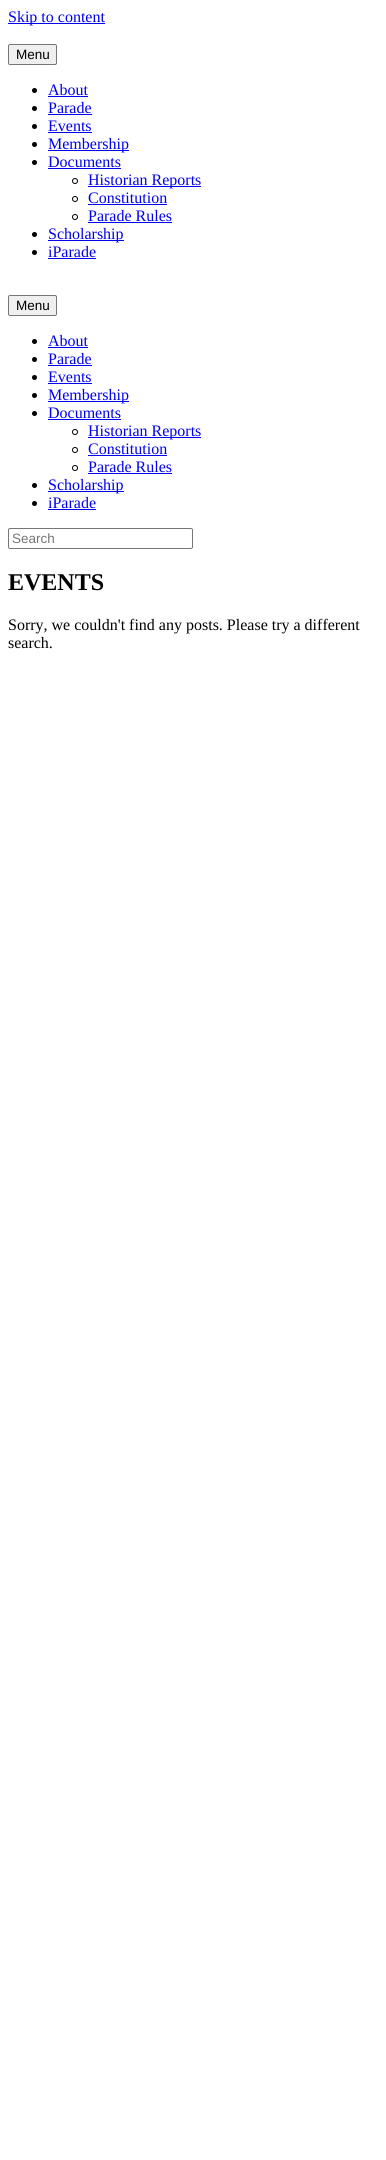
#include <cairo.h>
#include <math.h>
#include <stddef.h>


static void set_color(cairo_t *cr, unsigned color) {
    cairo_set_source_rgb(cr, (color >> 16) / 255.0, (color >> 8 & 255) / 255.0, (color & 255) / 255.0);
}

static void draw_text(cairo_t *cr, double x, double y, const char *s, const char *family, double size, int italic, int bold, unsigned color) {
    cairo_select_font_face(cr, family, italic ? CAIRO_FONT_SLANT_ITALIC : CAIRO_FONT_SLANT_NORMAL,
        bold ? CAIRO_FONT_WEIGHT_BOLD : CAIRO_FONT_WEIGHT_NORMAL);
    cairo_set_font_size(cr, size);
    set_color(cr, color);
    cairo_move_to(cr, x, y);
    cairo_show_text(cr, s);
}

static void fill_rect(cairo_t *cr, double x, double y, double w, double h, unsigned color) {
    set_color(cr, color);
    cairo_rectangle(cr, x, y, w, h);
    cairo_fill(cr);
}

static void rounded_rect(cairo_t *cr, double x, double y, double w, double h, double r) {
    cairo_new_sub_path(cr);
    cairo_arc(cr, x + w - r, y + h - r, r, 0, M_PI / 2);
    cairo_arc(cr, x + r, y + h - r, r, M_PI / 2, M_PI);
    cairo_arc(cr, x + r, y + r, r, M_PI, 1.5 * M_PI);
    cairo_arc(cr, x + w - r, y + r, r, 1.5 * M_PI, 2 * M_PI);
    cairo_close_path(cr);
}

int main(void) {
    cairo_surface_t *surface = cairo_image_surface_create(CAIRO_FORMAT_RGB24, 386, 2160);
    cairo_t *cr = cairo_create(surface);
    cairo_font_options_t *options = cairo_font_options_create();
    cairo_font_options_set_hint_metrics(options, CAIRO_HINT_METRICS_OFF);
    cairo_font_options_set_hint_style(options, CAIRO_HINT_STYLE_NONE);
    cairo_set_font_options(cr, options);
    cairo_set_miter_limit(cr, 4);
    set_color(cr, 0xFFFFFF);
    cairo_paint(cr);
    fill_rect(cr, 8, 23, 97, 1, 0x0000EE);
    draw_text(cr, 8, 22, "Skip to content", "Liberation Serif", 16, 0, 0, 0x0000EE);
    set_color(cr, 0xEFEFEF);
    rounded_rect(cr, 8.5, 44.5, 48, 20, 1.5);
    cairo_fill_preserve(cr);
    set_color(cr, 0x767676);
    cairo_set_line_width(cr, 1);
    cairo_stroke(cr);
    draw_text(cr, 16, 59, "Menu", "Liberation Sans", 13.5, 0, 0, 0x000000);
    cairo_new_path(cr);
    cairo_arc(cr, 34.5, 90.5, 2.5, 0, 2 * M_PI);
    cairo_fill(cr);
    draw_text(cr, 48, 95, "About", "Liberation Serif", 16, 0, 0, 0x0000EE);
    fill_rect(cr, 48, 96, 40, 1, 0x0000EE);
    set_color(cr, 0x000000);
    cairo_new_path(cr);
    cairo_arc(cr, 34.5, 108.5, 2.5, 0, 2 * M_PI);
    cairo_fill(cr);
    draw_text(cr, 48, 113, "Parade", "Liberation Serif", 16, 0, 0, 0x0000EE);
    fill_rect(cr, 48, 114, 44, 1, 0x0000EE);
    set_color(cr, 0x000000);
    cairo_new_path(cr);
    cairo_arc(cr, 34.5, 126.5, 2.5, 0, 2 * M_PI);
    cairo_fill(cr);
    draw_text(cr, 48, 131, "Events", "Liberation Serif", 16, 0, 0, 0x0000EE);
    fill_rect(cr, 48, 132, 44, 1, 0x0000EE);
    set_color(cr, 0x000000);
    cairo_new_path(cr);
    cairo_arc(cr, 34.5, 144.5, 2.5, 0, 2 * M_PI);
    cairo_fill(cr);
    fill_rect(cr, 48, 150, 81, 1, 0x0000EE);
    draw_text(cr, 48, 149, "Membership", "Liberation Serif", 16, 0, 0, 0x0000EE);
    set_color(cr, 0x000000);
    cairo_new_path(cr);
    cairo_arc(cr, 34.5, 162.5, 2.5, 0, 2 * M_PI);
    cairo_fill(cr);
    draw_text(cr, 48, 167, "Documents", "Liberation Serif", 16, 0, 0, 0x0000EE);
    fill_rect(cr, 48, 168, 73, 1, 0x0000EE);
    cairo_new_path(cr);
    cairo_arc(cr, 75, 181, 2.5, 0, 2 * M_PI);
    set_color(cr, 0x000000);
    cairo_stroke(cr);
    fill_rect(cr, 88, 186, 113, 1, 0x0000EE);
    draw_text(cr, 88, 185, "Historian Reports", "Liberation Serif", 16, 0, 0, 0x0000EE);
    cairo_new_path(cr);
    cairo_arc(cr, 75, 199, 2.5, 0, 2 * M_PI);
    set_color(cr, 0x000000);
    cairo_stroke(cr);
    draw_text(cr, 88, 203, "Constitution", "Liberation Serif", 16, 0, 0, 0x0000EE);
    fill_rect(cr, 88, 204, 79, 1, 0x0000EE);
    cairo_new_path(cr);
    cairo_arc(cr, 75, 217, 2.5, 0, 2 * M_PI);
    set_color(cr, 0x000000);
    cairo_stroke(cr);
    draw_text(cr, 88, 221, "Parade Rules", "Liberation Serif", 16, 0, 0, 0x0000EE);
    fill_rect(cr, 88, 222, 84, 1, 0x0000EE);
    set_color(cr, 0x000000);
    cairo_new_path(cr);
    cairo_arc(cr, 34.5, 234.5, 2.5, 0, 2 * M_PI);
    cairo_fill(cr);
    fill_rect(cr, 48, 240, 76, 1, 0x0000EE);
    draw_text(cr, 48, 239, "Scholarship", "Liberation Serif", 16, 0, 0, 0x0000EE);
    set_color(cr, 0x000000);
    cairo_new_path(cr);
    cairo_arc(cr, 34.5, 252.5, 2.5, 0, 2 * M_PI);
    cairo_fill(cr);
    draw_text(cr, 48, 257, "iParade", "Liberation Serif", 16, 0, 0, 0x0000EE);
    fill_rect(cr, 48, 258, 48, 1, 0x0000EE);
    set_color(cr, 0xEFEFEF);
    rounded_rect(cr, 8.5, 295.5, 48, 20, 1.5);
    cairo_fill_preserve(cr);
    set_color(cr, 0x767676);
    cairo_stroke(cr);
    draw_text(cr, 16, 310, "Menu", "Liberation Sans", 13.5, 0, 0, 0x000000);
    cairo_new_path(cr);
    cairo_arc(cr, 34.5, 341.5, 2.5, 0, 2 * M_PI);
    cairo_fill(cr);
    draw_text(cr, 48, 346, "About", "Liberation Serif", 16, 0, 0, 0x0000EE);
    fill_rect(cr, 48, 347, 40, 1, 0x0000EE);
    set_color(cr, 0x000000);
    cairo_new_path(cr);
    cairo_arc(cr, 34.5, 359.5, 2.5, 0, 2 * M_PI);
    cairo_fill(cr);
    draw_text(cr, 48, 364, "Parade", "Liberation Serif", 16, 0, 0, 0x0000EE);
    fill_rect(cr, 48, 365, 44, 1, 0x0000EE);
    set_color(cr, 0x000000);
    cairo_new_path(cr);
    cairo_arc(cr, 34.5, 377.5, 2.5, 0, 2 * M_PI);
    cairo_fill(cr);
    draw_text(cr, 48, 382, "Events", "Liberation Serif", 16, 0, 0, 0x0000EE);
    fill_rect(cr, 48, 383, 44, 1, 0x0000EE);
    set_color(cr, 0x000000);
    cairo_new_path(cr);
    cairo_arc(cr, 34.5, 395.5, 2.5, 0, 2 * M_PI);
    cairo_fill(cr);
    fill_rect(cr, 48, 401, 81, 1, 0x0000EE);
    draw_text(cr, 48, 400, "Membership", "Liberation Serif", 16, 0, 0, 0x0000EE);
    set_color(cr, 0x000000);
    cairo_new_path(cr);
    cairo_arc(cr, 34.5, 413.5, 2.5, 0, 2 * M_PI);
    cairo_fill(cr);
    draw_text(cr, 48, 418, "Documents", "Liberation Serif", 16, 0, 0, 0x0000EE);
    fill_rect(cr, 48, 419, 73, 1, 0x0000EE);
    cairo_new_path(cr);
    cairo_arc(cr, 75, 432, 2.5, 0, 2 * M_PI);
    set_color(cr, 0x000000);
    cairo_stroke(cr);
    fill_rect(cr, 88, 437, 113, 1, 0x0000EE);
    draw_text(cr, 88, 436, "Historian Reports", "Liberation Serif", 16, 0, 0, 0x0000EE);
    cairo_new_path(cr);
    cairo_arc(cr, 75, 450, 2.5, 0, 2 * M_PI);
    set_color(cr, 0x000000);
    cairo_stroke(cr);
    draw_text(cr, 88, 454, "Constitution", "Liberation Serif", 16, 0, 0, 0x0000EE);
    fill_rect(cr, 88, 455, 79, 1, 0x0000EE);
    cairo_new_path(cr);
    cairo_arc(cr, 75, 468, 2.5, 0, 2 * M_PI);
    set_color(cr, 0x000000);
    cairo_stroke(cr);
    draw_text(cr, 88, 472, "Parade Rules", "Liberation Serif", 16, 0, 0, 0x0000EE);
    fill_rect(cr, 88, 473, 84, 1, 0x0000EE);
    set_color(cr, 0x000000);
    cairo_new_path(cr);
    cairo_arc(cr, 34.5, 485.5, 2.5, 0, 2 * M_PI);
    cairo_fill(cr);
    fill_rect(cr, 48, 491, 76, 1, 0x0000EE);
    draw_text(cr, 48, 490, "Scholarship", "Liberation Serif", 16, 0, 0, 0x0000EE);
    set_color(cr, 0x000000);
    cairo_new_path(cr);
    cairo_arc(cr, 34.5, 503.5, 2.5, 0, 2 * M_PI);
    cairo_fill(cr);
    draw_text(cr, 48, 508, "iParade", "Liberation Serif", 16, 0, 0, 0x0000EE);
    fill_rect(cr, 48, 509, 48, 1, 0x0000EE);
    rounded_rect(cr, 8.5, 528.5, 184, 20, 1.5);
    set_color(cr, 0x767676);
    cairo_stroke(cr);
    draw_text(cr, 12, 543, "Search", "Liberation Sans", 13.5, 0, 0, 0x757575);
    draw_text(cr, 8, 590, "EVENTS", "Liberation Serif", 24, 0, 1, 0x000000);
    draw_text(cr, 8, 630, "Sorry, we couldn't find any posts. Please try a different", "Liberation Serif", 16, 0, 0, 0x000000);
    draw_text(cr, 8, 648, "search.", "Liberation Serif", 16, 0, 0, 0x000000);
    cairo_surface_write_to_png(surface, "output.png");
    cairo_font_options_destroy(options);
    cairo_destroy(cr);
    cairo_surface_destroy(surface);
    return 0;
}
